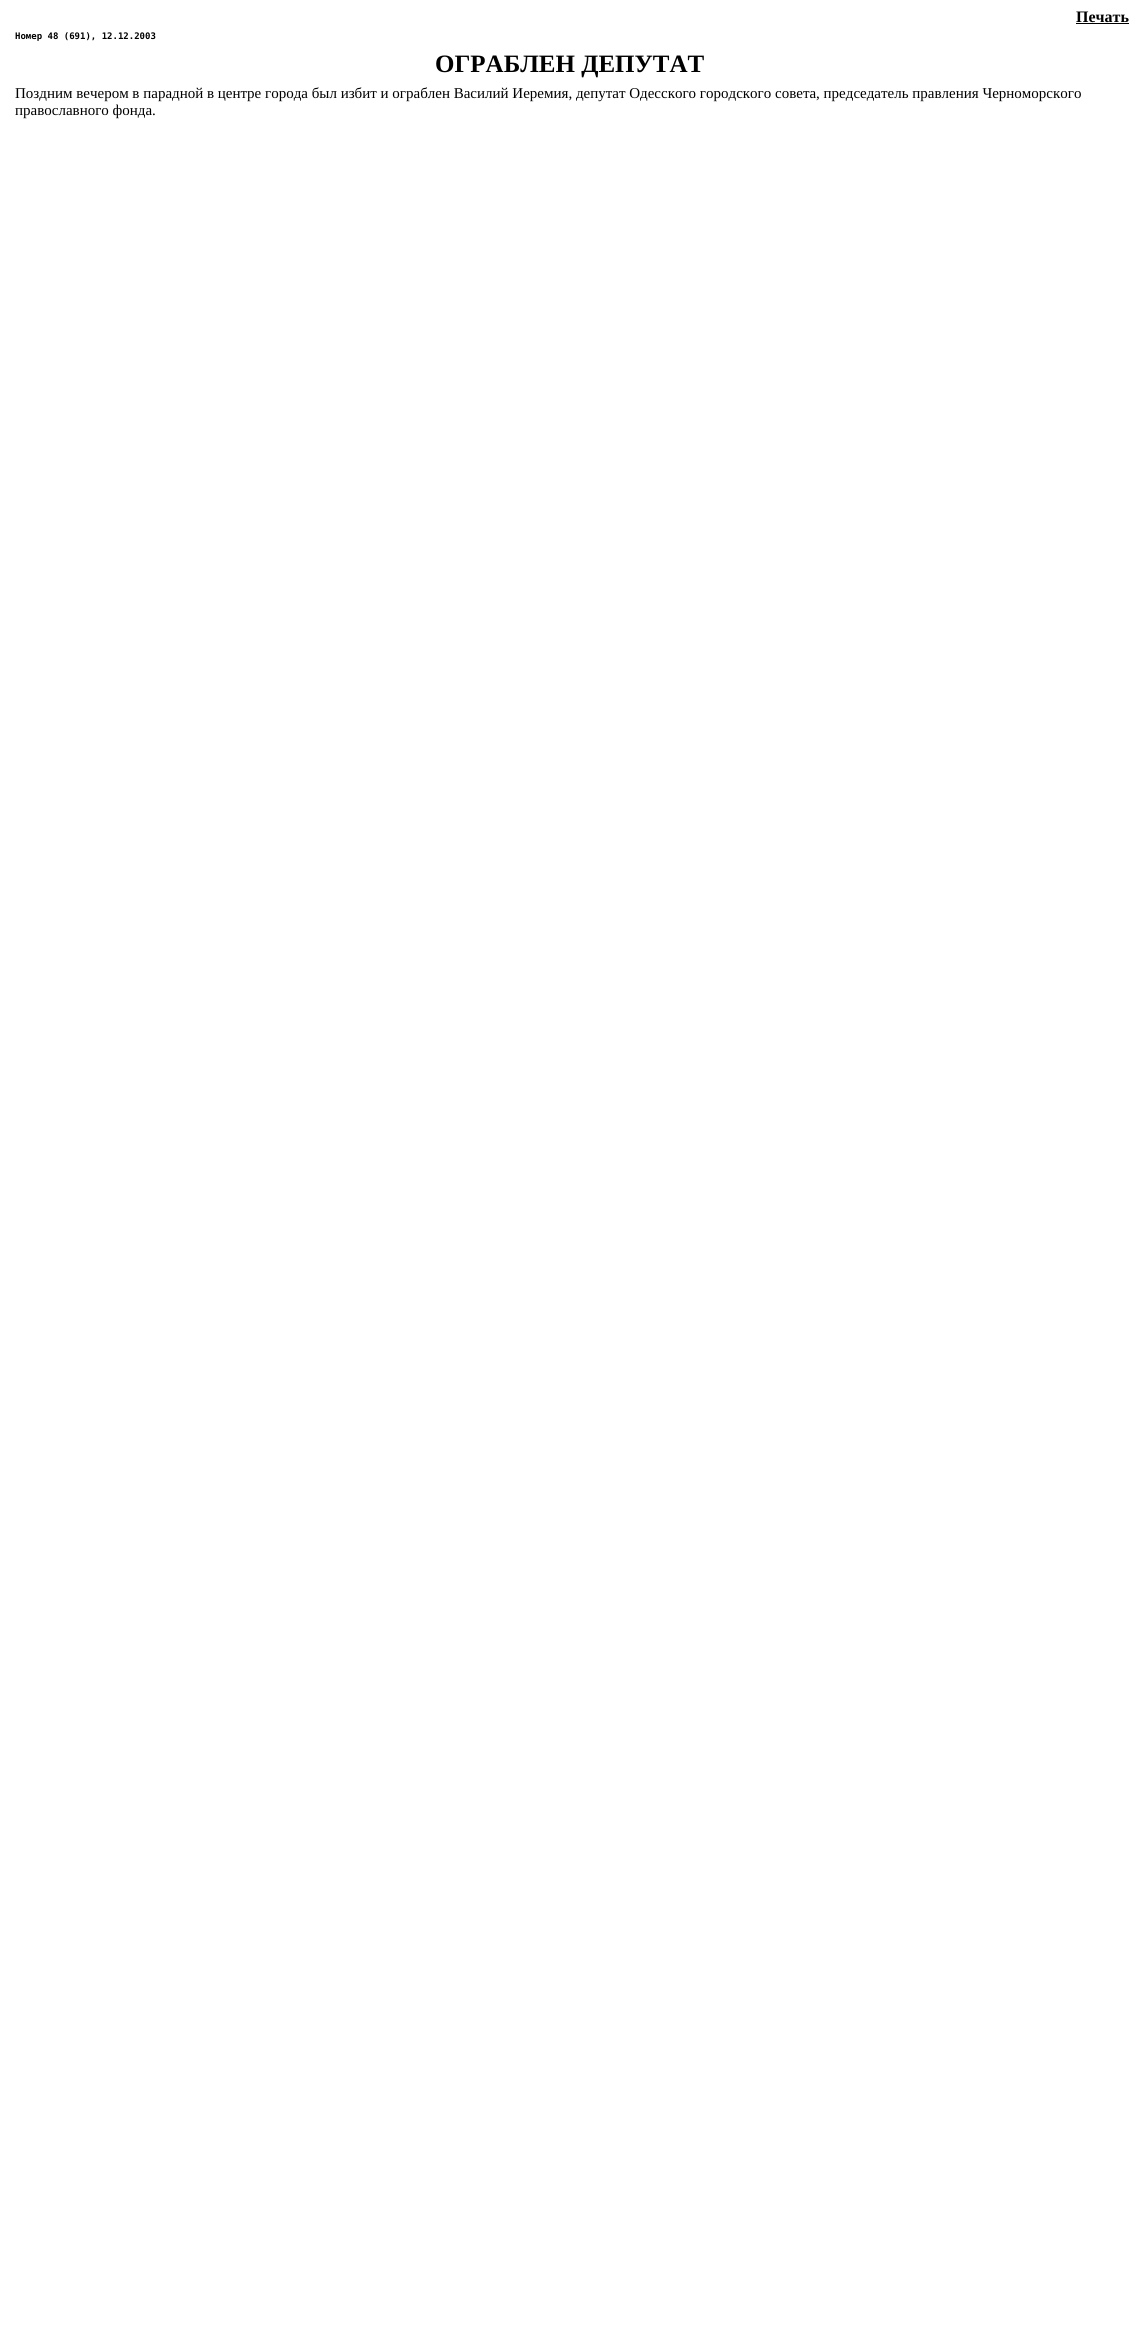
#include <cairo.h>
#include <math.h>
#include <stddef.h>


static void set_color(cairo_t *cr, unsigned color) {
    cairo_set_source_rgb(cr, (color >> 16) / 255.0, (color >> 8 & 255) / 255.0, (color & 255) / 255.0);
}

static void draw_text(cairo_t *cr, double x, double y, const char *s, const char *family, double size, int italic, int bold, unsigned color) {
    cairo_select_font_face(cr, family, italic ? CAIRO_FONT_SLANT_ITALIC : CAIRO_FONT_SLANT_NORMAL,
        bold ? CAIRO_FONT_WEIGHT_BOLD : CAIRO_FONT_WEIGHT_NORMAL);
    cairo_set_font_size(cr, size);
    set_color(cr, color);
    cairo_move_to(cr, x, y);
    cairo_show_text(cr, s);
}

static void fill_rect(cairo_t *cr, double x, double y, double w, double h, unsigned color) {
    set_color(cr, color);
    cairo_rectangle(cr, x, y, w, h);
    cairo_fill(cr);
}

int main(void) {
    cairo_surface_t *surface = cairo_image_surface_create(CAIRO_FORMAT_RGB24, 1139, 2336);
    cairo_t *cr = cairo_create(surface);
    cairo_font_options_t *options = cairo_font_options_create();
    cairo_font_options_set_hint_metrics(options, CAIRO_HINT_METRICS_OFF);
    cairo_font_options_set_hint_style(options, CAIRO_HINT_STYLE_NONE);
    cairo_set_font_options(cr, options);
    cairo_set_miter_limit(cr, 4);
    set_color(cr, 0xFFFFFF);
    cairo_paint(cr);
    draw_text(cr, 1076, 22, "Печать", "Liberation Serif", 16, 0, 1, 0x000000);
    fill_rect(cr, 1076, 23, 53, 1, 0x000000);
    draw_text(cr, 15, 39, "Номер 48 (691), 12.12.2003", "DejaVu Sans Mono", 9, 0, 1, 0x000000);
    draw_text(cr, 435, 72, "ОГРАБЛЕН ДЕПУТАТ", "Liberation Serif", 25, 0, 1, 0x000000);
    draw_text(cr, 15, 98, "Поздним вечером в парадной в центре города был избит и ограблен Василий Иеремия, депутат Одесского городского совета, председатель правления Черноморского", "Liberation Serif", 15, 0, 0, 0x000000);
    draw_text(cr, 15, 115, "православного фонда.", "Liberation Serif", 15, 0, 0, 0x000000);
    cairo_surface_write_to_png(surface, "output.png");
    cairo_font_options_destroy(options);
    cairo_destroy(cr);
    cairo_surface_destroy(surface);
    return 0;
}
